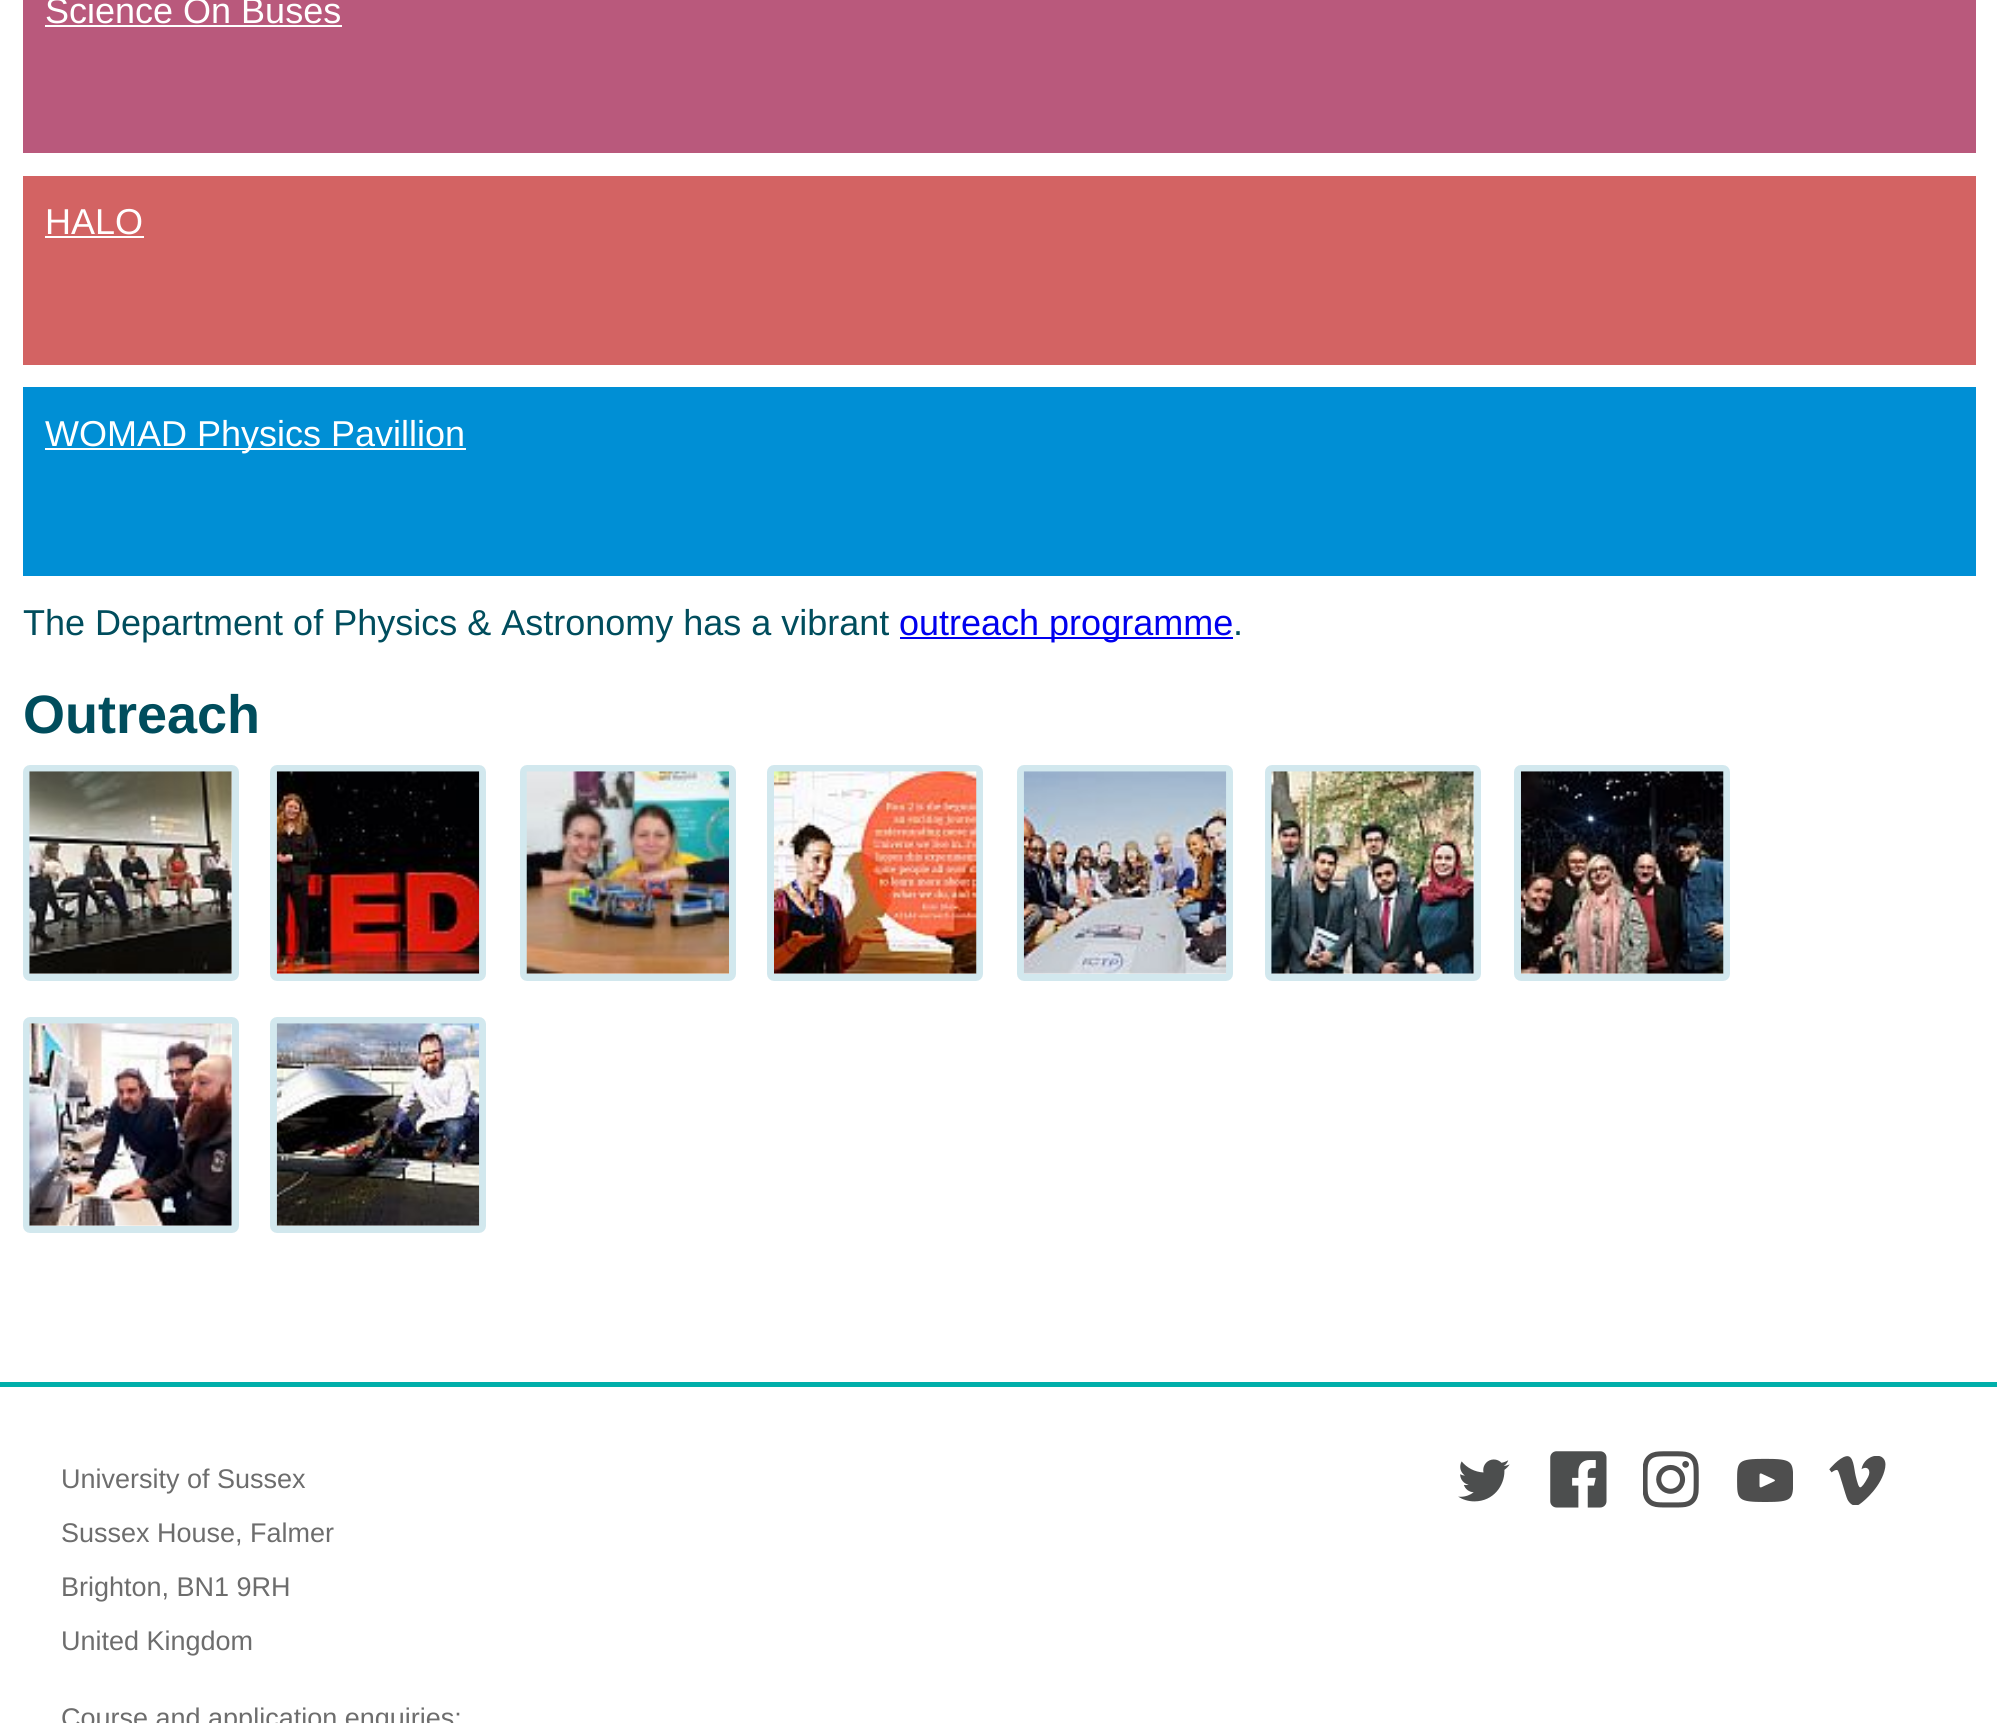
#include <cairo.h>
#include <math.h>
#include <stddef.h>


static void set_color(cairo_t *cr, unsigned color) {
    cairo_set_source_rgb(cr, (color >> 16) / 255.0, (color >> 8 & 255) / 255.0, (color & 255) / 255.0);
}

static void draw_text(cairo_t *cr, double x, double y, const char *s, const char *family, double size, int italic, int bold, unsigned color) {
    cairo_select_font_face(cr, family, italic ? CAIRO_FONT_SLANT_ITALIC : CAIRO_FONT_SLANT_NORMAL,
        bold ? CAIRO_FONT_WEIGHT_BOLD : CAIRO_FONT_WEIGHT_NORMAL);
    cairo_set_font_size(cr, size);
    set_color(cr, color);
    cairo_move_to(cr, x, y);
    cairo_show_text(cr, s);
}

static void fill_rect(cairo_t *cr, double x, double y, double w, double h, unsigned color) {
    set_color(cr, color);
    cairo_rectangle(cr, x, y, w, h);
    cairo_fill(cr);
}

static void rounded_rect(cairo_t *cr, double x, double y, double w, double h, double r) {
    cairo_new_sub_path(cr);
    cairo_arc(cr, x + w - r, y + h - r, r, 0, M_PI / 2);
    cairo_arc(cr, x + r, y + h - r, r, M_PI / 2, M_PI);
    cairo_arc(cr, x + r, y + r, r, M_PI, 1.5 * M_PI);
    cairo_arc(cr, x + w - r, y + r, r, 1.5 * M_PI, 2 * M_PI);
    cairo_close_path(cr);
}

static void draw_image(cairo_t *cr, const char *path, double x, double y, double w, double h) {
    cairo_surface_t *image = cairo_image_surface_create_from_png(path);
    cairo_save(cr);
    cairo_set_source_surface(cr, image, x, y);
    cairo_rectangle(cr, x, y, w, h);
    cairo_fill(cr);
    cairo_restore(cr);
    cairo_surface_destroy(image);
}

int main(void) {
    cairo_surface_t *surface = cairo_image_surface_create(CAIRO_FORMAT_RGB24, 1997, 1723);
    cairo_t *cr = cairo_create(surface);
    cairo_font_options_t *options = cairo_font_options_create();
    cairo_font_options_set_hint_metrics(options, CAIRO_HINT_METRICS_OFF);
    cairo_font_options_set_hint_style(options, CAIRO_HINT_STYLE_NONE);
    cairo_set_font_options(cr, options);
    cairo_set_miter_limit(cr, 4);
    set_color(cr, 0xFFFFFF);
    cairo_paint(cr);
    fill_rect(cr, 23, 0, 1953, 153, 0xB9597C);
    draw_text(cr, 45, 23, "Science On Buses", "Liberation Sans", 36, 0, 0, 0xFFFFFF);
    fill_rect(cr, 45, 25, 297, 2, 0xFFFFFF);
    fill_rect(cr, 23, 176, 1953, 189, 0xD36363);
    draw_text(cr, 45, 234, "HALO", "Liberation Sans", 36, 0, 0, 0xFFFFFF);
    fill_rect(cr, 45, 236, 99, 2, 0xFFFFFF);
    fill_rect(cr, 23, 387, 1953, 189, 0x008FD5);
    fill_rect(cr, 45, 448, 421, 2, 0xFFFFFF);
    draw_text(cr, 45, 446, "WOMAD Physics Pavillion", "Liberation Sans", 36, 0, 0, 0xFFFFFF);
    draw_text(cr, 23, 635, "The Department of Physics & Astronomy has a vibrant", "Liberation Sans", 36, 0, 0, 0x004D5D);
    fill_rect(cr, 900, 637, 333, 2, 0x0000EE);
    draw_text(cr, 899, 635, "outreach programme", "Liberation Sans", 36, 0, 0, 0x0000EE);
    draw_text(cr, 1233, 635, ".", "Liberation Sans", 36, 0, 0, 0x004D5D);
    draw_text(cr, 23, 733, "Outreach", "Liberation Sans", 54, 0, 1, 0x004D5D);
    rounded_rect(cr, 26.5, 768.5, 209, 209, 3.5);
    set_color(cr, 0xD2E8EE);
    cairo_set_line_width(cr, 7);
    cairo_stroke(cr);
    draw_image(cr, "assets/img1.png", 29, 771, 203, 203);
    rounded_rect(cr, 273.5, 768.5, 209, 209, 3.5);
    cairo_stroke(cr);
    draw_image(cr, "assets/img2.png", 276, 771, 204, 203);
    rounded_rect(cr, 523.5, 768.5, 209, 209, 3.5);
    cairo_stroke(cr);
    draw_image(cr, "assets/img3.png", 526, 771, 203, 203);
    rounded_rect(cr, 770.5, 768.5, 209, 209, 3.5);
    cairo_stroke(cr);
    draw_image(cr, "assets/img4.png", 774, 771, 203, 203);
    rounded_rect(cr, 1020.5, 768.5, 209, 209, 3.5);
    cairo_stroke(cr);
    draw_image(cr, "assets/img5.png", 1023, 771, 204, 203);
    rounded_rect(cr, 1268.5, 768.5, 209, 209, 3.5);
    cairo_stroke(cr);
    draw_image(cr, "assets/img6.png", 1271, 771, 203, 203);
    rounded_rect(cr, 1517.5, 768.5, 209, 209, 3.5);
    cairo_stroke(cr);
    draw_image(cr, "assets/img7.png", 1521, 771, 203, 203);
    rounded_rect(cr, 26.5, 1020.5, 209, 209, 3.5);
    cairo_stroke(cr);
    draw_image(cr, "assets/img8.png", 29, 1023, 203, 203);
    rounded_rect(cr, 273.5, 1020.5, 209, 209, 3.5);
    cairo_stroke(cr);
    draw_image(cr, "assets/img9.png", 276, 1023, 204, 203);
    fill_rect(cr, 0, 1382, 1997, 5, 0x00AFAA);
    draw_text(cr, 61, 1488, "University of Sussex", "Liberation Sans", 27, 0, 0, 0x6D6D6D);
    draw_text(cr, 61, 1542, "Sussex House, Falmer", "Liberation Sans", 27, 0, 0, 0x6D6D6D);
    draw_text(cr, 61, 1596, "Brighton, BN1 9RH", "Liberation Sans", 27, 0, 0, 0x6D6D6D);
    draw_text(cr, 61, 1650, "United Kingdom", "Liberation Sans", 27, 0, 0, 0x6D6D6D);
    draw_text(cr, 61, 1727, "Course and application enquiries:", "Liberation Sans", 27, 0, 0, 0x6D6D6D);
    draw_image(cr, "assets/img10.png", 1458, 1459, 52, 43);
    draw_image(cr, "assets/img11.png", 1550, 1451, 57, 57);
    draw_image(cr, "assets/img12.png", 1643, 1451, 56, 57);
    draw_image(cr, "assets/img13.png", 1737, 1458, 56, 44);
    draw_image(cr, "assets/img14.png", 1829, 1456, 57, 49);
    cairo_surface_write_to_png(surface, "output.png");
    cairo_font_options_destroy(options);
    cairo_destroy(cr);
    cairo_surface_destroy(surface);
    return 0;
}
